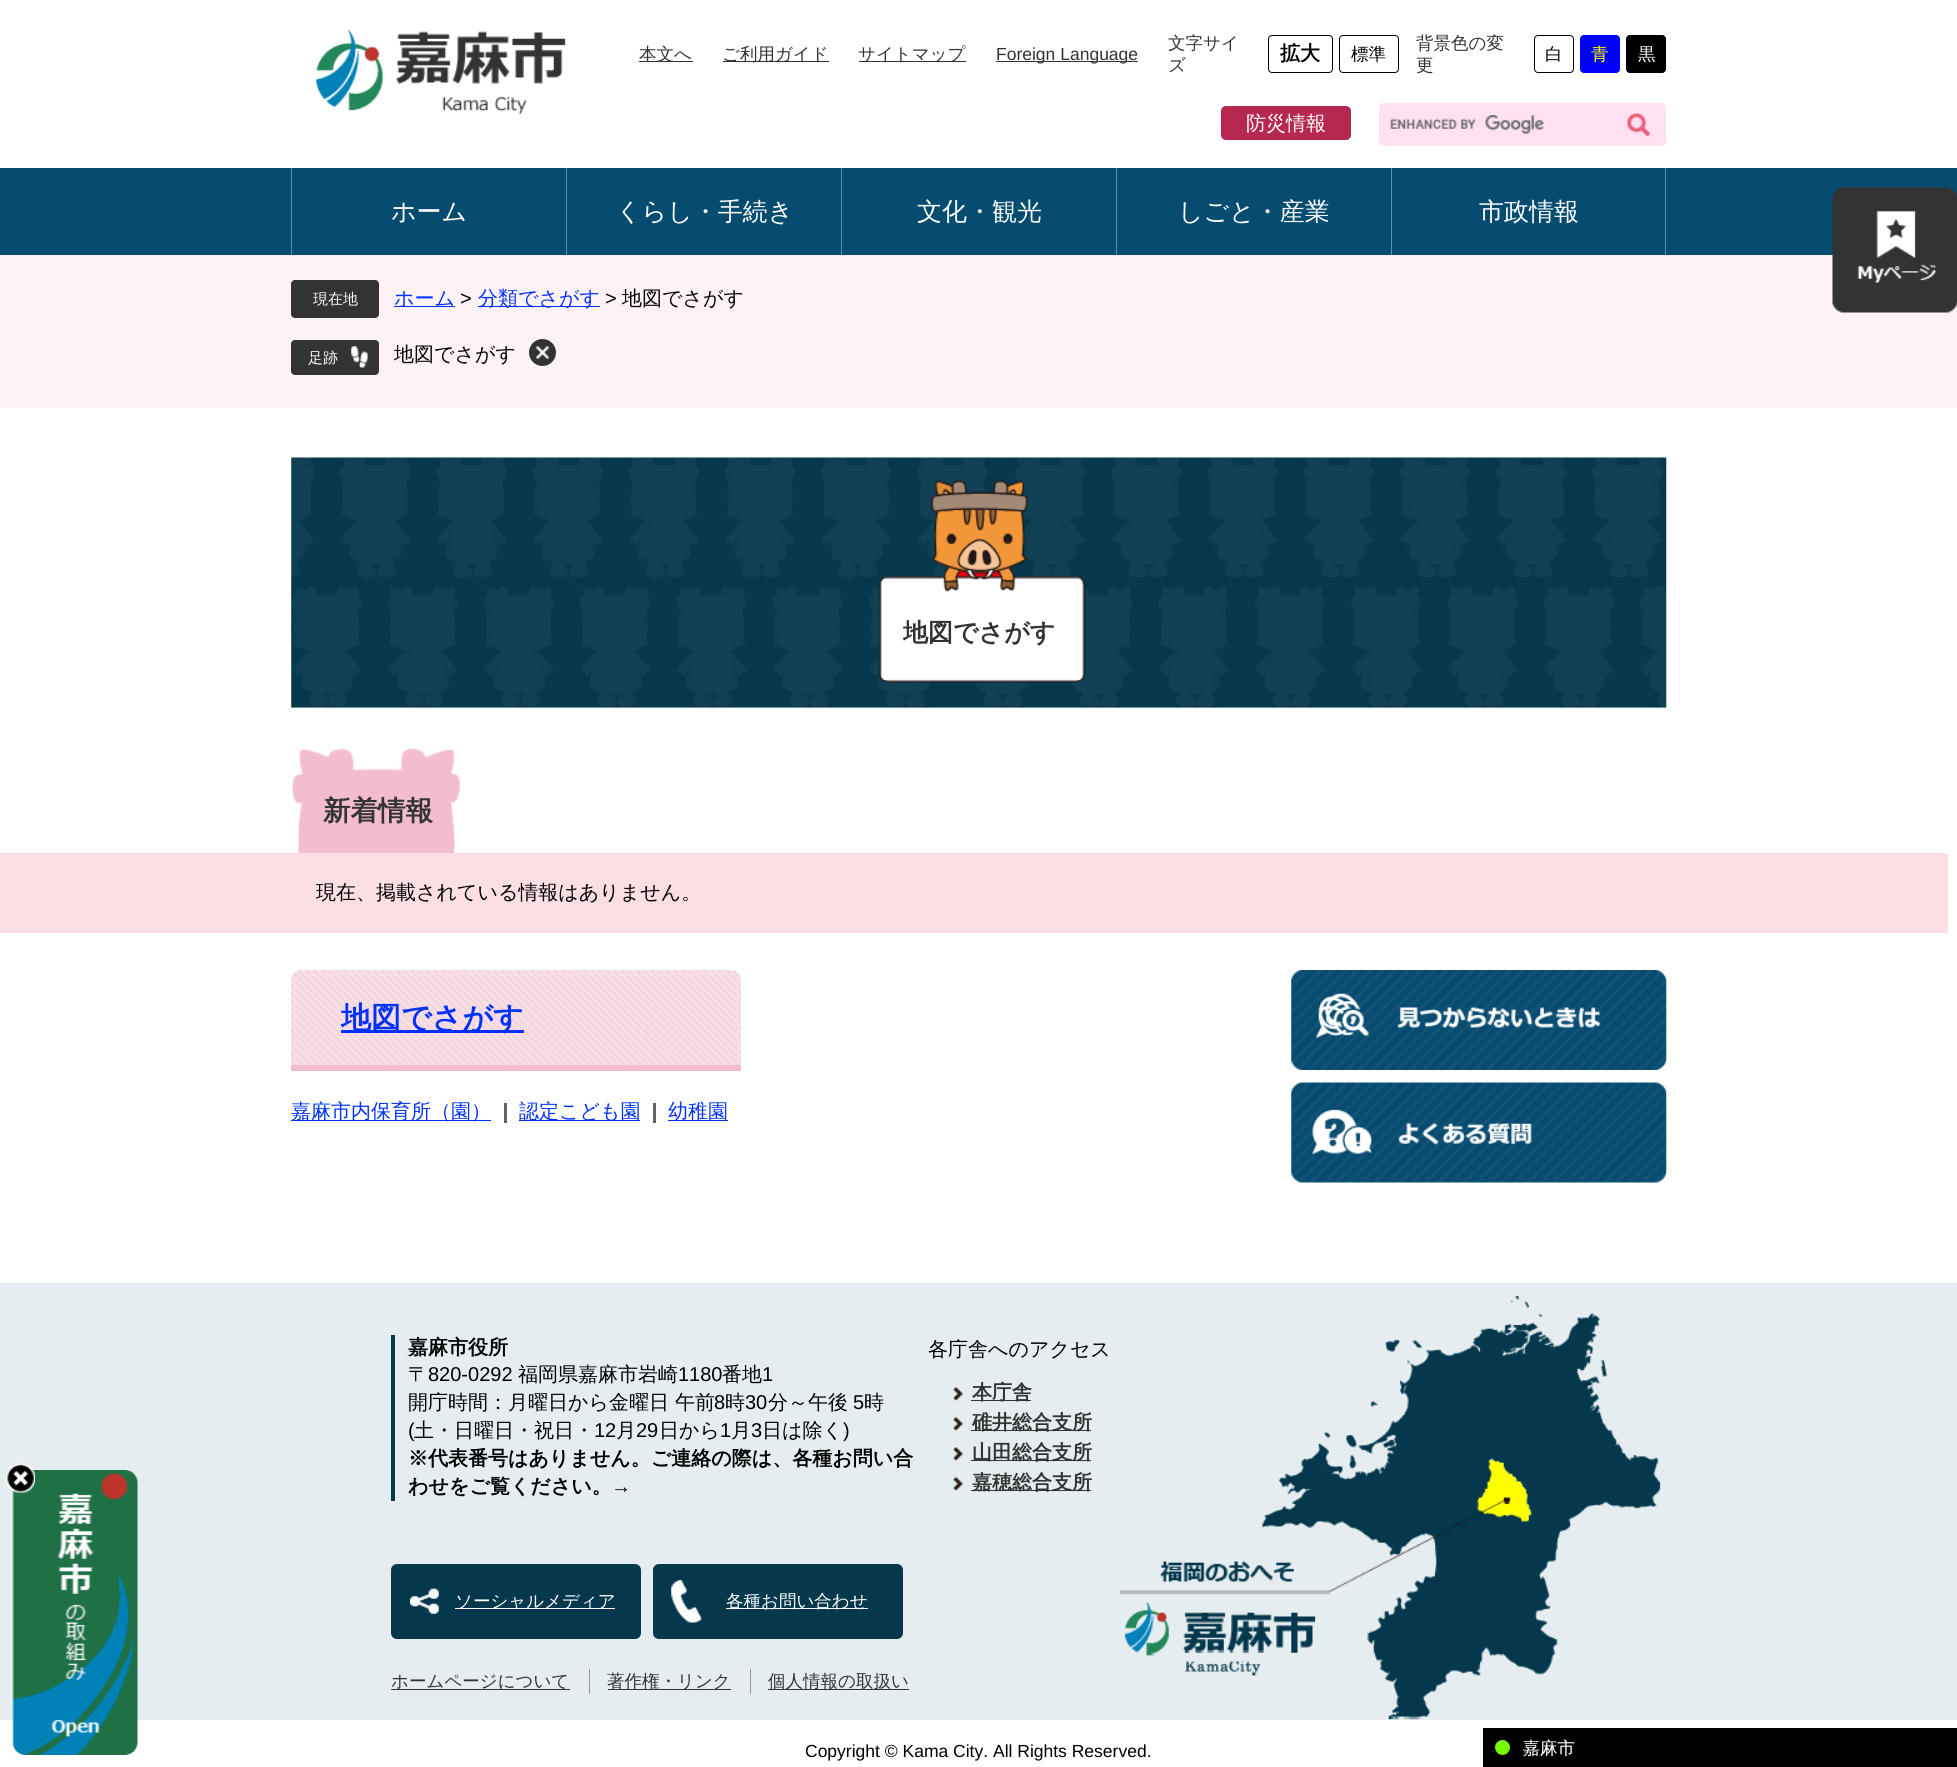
#include <cairo.h>
#include <math.h>
#include <stddef.h>


static void set_color(cairo_t *cr, unsigned color) {
    cairo_set_source_rgb(cr, (color >> 16) / 255.0, (color >> 8 & 255) / 255.0, (color & 255) / 255.0);
}

static void draw_text(cairo_t *cr, double x, double y, const char *s, const char *family, double size, int italic, int bold, unsigned color) {
    cairo_select_font_face(cr, family, italic ? CAIRO_FONT_SLANT_ITALIC : CAIRO_FONT_SLANT_NORMAL,
        bold ? CAIRO_FONT_WEIGHT_BOLD : CAIRO_FONT_WEIGHT_NORMAL);
    cairo_set_font_size(cr, size);
    set_color(cr, color);
    cairo_move_to(cr, x, y);
    cairo_show_text(cr, s);
}

static void fill_rect(cairo_t *cr, double x, double y, double w, double h, unsigned color) {
    set_color(cr, color);
    cairo_rectangle(cr, x, y, w, h);
    cairo_fill(cr);
}

static void rounded_rect(cairo_t *cr, double x, double y, double w, double h, double r) {
    cairo_new_sub_path(cr);
    cairo_arc(cr, x + w - r, y + h - r, r, 0, M_PI / 2);
    cairo_arc(cr, x + r, y + h - r, r, M_PI / 2, M_PI);
    cairo_arc(cr, x + r, y + r, r, M_PI, 1.5 * M_PI);
    cairo_arc(cr, x + w - r, y + r, r, 1.5 * M_PI, 2 * M_PI);
    cairo_close_path(cr);
}

static void draw_image(cairo_t *cr, const char *path, double x, double y, double w, double h) {
    cairo_surface_t *image = cairo_image_surface_create_from_png(path);
    cairo_save(cr);
    cairo_set_source_surface(cr, image, x, y);
    cairo_rectangle(cr, x, y, w, h);
    cairo_fill(cr);
    cairo_restore(cr);
    cairo_surface_destroy(image);
}

int main(void) {
    cairo_surface_t *surface = cairo_image_surface_create(CAIRO_FORMAT_RGB24, 1957, 1767);
    cairo_t *cr = cairo_create(surface);
    cairo_font_options_t *options = cairo_font_options_create();
    cairo_font_options_set_hint_metrics(options, CAIRO_HINT_METRICS_OFF);
    cairo_font_options_set_hint_style(options, CAIRO_HINT_STYLE_NONE);
    cairo_set_font_options(cr, options);
    cairo_set_miter_limit(cr, 4);
    set_color(cr, 0xFFFFFF);
    cairo_paint(cr);
    draw_image(cr, "assets/img1.png", 316, 29, 250, 85);
    fill_rect(cr, 639, 61, 54, 1, 0x333333);
    draw_text(cr, 639, 60, "本文へ", "WenQuanYi Zen Hei Medium", 17.5, 0, 0, 0x333333);
    fill_rect(cr, 723, 61, 106, 1, 0x333333);
    draw_text(cr, 722, 60, "ご利用ガイド", "WenQuanYi Zen Hei Medium", 17.5, 0, 0, 0x333333);
    fill_rect(cr, 859, 61, 107, 1, 0x333333);
    draw_text(cr, 858, 60, "サイトマップ", "WenQuanYi Zen Hei Medium", 17.5, 0, 0, 0x333333);
    fill_rect(cr, 996, 61, 142, 1, 0x333333);
    draw_text(cr, 996, 60, "Foreign Language", "Liberation Sans", 17.5, 0, 0, 0x333333);
    draw_text(cr, 1168, 49, "文字サイ", "WenQuanYi Zen Hei Medium", 17.5, 0, 0, 0x333333);
    draw_text(cr, 1168, 71, "ズ", "WenQuanYi Zen Hei Medium", 17.5, 0, 0, 0x333333);
    rounded_rect(cr, 1268.5, 35.5, 64, 37, 3.5);
    set_color(cr, 0x000000);
    cairo_set_line_width(cr, 1);
    cairo_stroke(cr);
    draw_text(cr, 1280, 60, "拡大", "WenQuanYi Zen Hei", 20, 0, 1, 0x000000);
    rounded_rect(cr, 1339.5, 35.5, 59, 37, 3.5);
    cairo_stroke(cr);
    draw_text(cr, 1351, 60, "標準", "WenQuanYi Zen Hei Medium", 17.5, 0, 0, 0x000000);
    draw_text(cr, 1416, 49, "背景色の変", "WenQuanYi Zen Hei Medium", 17.5, 0, 0, 0x333333);
    draw_text(cr, 1416, 71, "更", "WenQuanYi Zen Hei Medium", 17.5, 0, 0, 0x333333);
    rounded_rect(cr, 1534.5, 35.5, 39, 37, 3.5);
    set_color(cr, 0x000000);
    cairo_stroke(cr);
    draw_text(cr, 1545, 60, "白", "WenQuanYi Zen Hei Medium", 17.5, 0, 0, 0x000000);
    set_color(cr, 0x0000FF);
    rounded_rect(cr, 1580.5, 35.5, 39, 37, 3.5);
    cairo_fill_preserve(cr);
    cairo_stroke(cr);
    draw_text(cr, 1591, 60, "青", "WenQuanYi Zen Hei Medium", 17.5, 0, 0, 0xFFFF00);
    set_color(cr, 0x000000);
    rounded_rect(cr, 1626.5, 35.5, 39, 37, 3.5);
    cairo_fill_preserve(cr);
    cairo_stroke(cr);
    draw_text(cr, 1638, 60, "黒", "WenQuanYi Zen Hei Medium", 17.5, 0, 0, 0xFFFFFF);
    set_color(cr, 0xB6284F);
    rounded_rect(cr, 1221, 106, 130, 34, 5);
    cairo_fill(cr);
    draw_text(cr, 1246, 130, "防災情報", "WenQuanYi Zen Hei Medium", 20, 0, 0, 0xFFFFFF);
    set_color(cr, 0xFFE1F1);
    cairo_new_path(cr);
    cairo_move_to(cr, 1384, 103);
    cairo_line_to(cr, 1610, 103);
    cairo_line_to(cr, 1610, 146);
    cairo_line_to(cr, 1384, 146);
    cairo_curve_to(cr, 1381, 146, 1379, 144, 1379, 141);
    cairo_line_to(cr, 1379, 108);
    cairo_curve_to(cr, 1379, 105, 1381, 103, 1384, 103);
    cairo_close_path(cr);
    cairo_fill(cr);
    draw_image(cr, "assets/img2.png", 1390, 115, 154, 19);
    cairo_new_path(cr);
    cairo_move_to(cr, 1610, 103);
    cairo_line_to(cr, 1661, 103);
    cairo_curve_to(cr, 1664, 103, 1666, 105, 1666, 108);
    cairo_line_to(cr, 1666, 141);
    cairo_curve_to(cr, 1666, 144, 1664, 146, 1661, 146);
    cairo_line_to(cr, 1610, 146);
    cairo_close_path(cr);
    cairo_fill(cr);
    draw_image(cr, "assets/img3.png", 1627, 113, 23, 24);
    fill_rect(cr, 0, 168, 1957, 87, 0x064C70);
    fill_rect(cr, 291, 168, 1, 87, 0x648FA6);
    draw_text(cr, 391, 220, "ホーム", "WenQuanYi Zen Hei Medium", 25, 0, 0, 0xFFFFFF);
    fill_rect(cr, 566, 168, 1, 87, 0x648FA6);
    draw_text(cr, 616, 220, "くらし・手続き", "WenQuanYi Zen Hei Medium", 25, 0, 0, 0xFFFFFF);
    fill_rect(cr, 841, 168, 1, 87, 0x648FA6);
    draw_text(cr, 917, 220, "文化・観光", "WenQuanYi Zen Hei Medium", 25, 0, 0, 0xFFFFFF);
    fill_rect(cr, 1116, 168, 1, 87, 0x648FA6);
    draw_text(cr, 1178, 220, "しごと・産業", "WenQuanYi Zen Hei Medium", 25, 0, 0, 0xFFFFFF);
    fill_rect(cr, 1665, 168, 1, 87, 0x648FA6);
    fill_rect(cr, 1391, 168, 1, 87, 0x648FA6);
    draw_text(cr, 1479, 220, "市政情報", "WenQuanYi Zen Hei Medium", 25, 0, 0, 0xFFFFFF);
    fill_rect(cr, 0, 255, 1957, 153, 0xFDF2F5);
    set_color(cr, 0x333333);
    rounded_rect(cr, 291, 280, 88, 38, 4);
    cairo_fill(cr);
    draw_text(cr, 313, 304, "現在地", "WenQuanYi Zen Hei Medium", 15, 0, 0, 0xFFFFFF);
    fill_rect(cr, 394, 306, 61, 1, 0x0031FF);
    draw_text(cr, 394, 305, "ホーム", "WenQuanYi Zen Hei Medium", 20, 0, 0, 0x0031FF);
    draw_text(cr, 460, 305, ">", "Liberation Sans", 20, 0, 0, 0x000000);
    fill_rect(cr, 478, 306, 122, 1, 0x0031FF);
    draw_text(cr, 478, 305, "分類でさがす", "WenQuanYi Zen Hei Medium", 20, 0, 0, 0x0031FF);
    draw_text(cr, 605, 305, ">", "Liberation Sans", 20, 0, 0, 0x000000);
    draw_text(cr, 622, 305, "地図でさがす", "WenQuanYi Zen Hei Medium", 20, 0, 0, 0x000000);
    set_color(cr, 0x333333);
    rounded_rect(cr, 291, 340, 88, 35, 4);
    cairo_fill(cr);
    draw_image(cr, "assets/img4.png", 351, 346, 17, 22);
    draw_text(cr, 308, 363, "足跡", "WenQuanYi Zen Hei Medium", 15, 0, 0, 0xFFFFFF);
    draw_text(cr, 394, 361, "地図でさがす", "WenQuanYi Zen Hei Medium", 20, 0, 0, 0x000000);
    set_color(cr, 0x333333);
    cairo_new_path(cr);
    cairo_arc(cr, 542.5, 352.5, 13.5, 0, 2 * M_PI);
    cairo_fill(cr);
    draw_image(cr, "assets/img5.png", 536, 346, 13, 13);
    fill_rect(cr, 291, 458, 1375, 250, 0xE6E6E6);
    draw_image(cr, "assets/img6.png", 291, 457, 1376, 251);
    draw_image(cr, "assets/img7.png", 878, 480, 208, 203);
    draw_text(cr, 903, 641, "地図でさがす", "WenQuanYi Zen Hei", 25, 0, 1, 0x333333);
    fill_rect(cr, 299, 839, 155, 14, 0xF4BDCD);
    draw_image(cr, "assets/img8.png", 292, 748, 169, 105);
    draw_text(cr, 323, 820, "新着情報", "WenQuanYi Zen Hei", 27.5, 0, 1, 0x333333);
    fill_rect(cr, 0, 853, 1948, 80, 0xFBDFE4);
    draw_text(cr, 316, 899, "現在、掲載されている情報はありません。", "WenQuanYi Zen Hei Medium", 20, 0, 0, 0x000000);
    set_color(cr, 0xF9DEE6);
    cairo_new_path(cr);
    cairo_move_to(cr, 301, 970);
    cairo_line_to(cr, 731, 970);
    cairo_curve_to(cr, 736.5, 970, 741, 974.5, 741, 980);
    cairo_line_to(cr, 741, 1071);
    cairo_line_to(cr, 291, 1071);
    cairo_line_to(cr, 291, 980);
    cairo_curve_to(cr, 291, 974.5, 295.5, 970, 301, 970);
    cairo_close_path(cr);
    cairo_fill(cr);
    draw_image(cr, "assets/img9.png", 291, 970, 450, 95);
    fill_rect(cr, 291, 1065, 450, 6, 0xF4BDCD);
    fill_rect(cr, 341, 1030, 183, 3, 0x0031FF);
    draw_text(cr, 341, 1028, "地図でさがす", "WenQuanYi Zen Hei", 30, 0, 1, 0x0031FF);
    fill_rect(cr, 504, 1103, 3, 20, 0x5E6569);
    fill_rect(cr, 291, 1120, 200, 1, 0x0031FF);
    draw_text(cr, 291, 1118, "嘉麻市内保育所（園）", "WenQuanYi Zen Hei Medium", 20, 0, 0, 0x0031FF);
    fill_rect(cr, 653, 1103, 3, 20, 0x5E6569);
    fill_rect(cr, 519, 1120, 121, 1, 0x0031FF);
    draw_text(cr, 519, 1118, "認定こども園", "WenQuanYi Zen Hei Medium", 20, 0, 0, 0x0031FF);
    fill_rect(cr, 668, 1120, 60, 1, 0x0031FF);
    draw_text(cr, 668, 1118, "幼稚園", "WenQuanYi Zen Hei Medium", 20, 0, 0, 0x0031FF);
    draw_image(cr, "assets/img10.png", 1291, 970, 376, 100);
    draw_image(cr, "assets/img11.png", 1291, 1082, 376, 101);
    fill_rect(cr, 0, 1283, 1957, 437, 0xE6EDF0);
    draw_image(cr, "assets/img12.png", 1120, 1296, 541, 424);
    fill_rect(cr, 391, 1335, 4, 166, 0x05384C);
    draw_text(cr, 408, 1354, "嘉麻市役所", "WenQuanYi Zen Hei", 20, 0, 1, 0x000000);
    draw_text(cr, 408, 1381, "〒", "WenQuanYi Zen Hei Medium", 20, 0, 0, 0x000000);
    draw_text(cr, 428, 1381, "820-0292", "Liberation Sans", 20, 0, 0, 0x000000);
    draw_text(cr, 518, 1381, "福岡県嘉麻市岩崎", "WenQuanYi Zen Hei Medium", 20, 0, 0, 0x000000);
    draw_text(cr, 678, 1381, "1180", "Liberation Sans", 20, 0, 0, 0x000000);
    draw_text(cr, 722, 1381, "番地", "WenQuanYi Zen Hei Medium", 20, 0, 0, 0x000000);
    draw_text(cr, 762, 1381, "1", "Liberation Sans", 20, 0, 0, 0x000000);
    draw_text(cr, 408, 1409, "開庁時間：月曜日から金曜日 午前", "WenQuanYi Zen Hei Medium", 20, 0, 0, 0x000000);
    draw_text(cr, 714, 1409, "8", "Liberation Sans", 20, 0, 0, 0x000000);
    draw_text(cr, 725, 1409, "時", "WenQuanYi Zen Hei Medium", 20, 0, 0, 0x000000);
    draw_text(cr, 745, 1409, "30", "Liberation Sans", 20, 0, 0, 0x000000);
    draw_text(cr, 768, 1409, "分～午後", "WenQuanYi Zen Hei Medium", 20, 0, 0, 0x000000);
    draw_text(cr, 853, 1409, "5", "Liberation Sans", 20, 0, 0, 0x000000);
    draw_text(cr, 864, 1409, "時", "WenQuanYi Zen Hei Medium", 20, 0, 0, 0x000000);
    draw_text(cr, 408, 1437, "(", "Liberation Sans", 20, 0, 0, 0x000000);
    draw_text(cr, 414, 1437, "土・日曜日・祝日・", "WenQuanYi Zen Hei Medium", 20, 0, 0, 0x000000);
    draw_text(cr, 594, 1437, "12", "Liberation Sans", 20, 0, 0, 0x000000);
    draw_text(cr, 616, 1437, "月", "WenQuanYi Zen Hei Medium", 20, 0, 0, 0x000000);
    draw_text(cr, 636, 1437, "29", "Liberation Sans", 20, 0, 0, 0x000000);
    draw_text(cr, 659, 1437, "日から", "WenQuanYi Zen Hei Medium", 20, 0, 0, 0x000000);
    draw_text(cr, 720, 1437, "1", "Liberation Sans", 20, 0, 0, 0x000000);
    draw_text(cr, 731, 1437, "月", "WenQuanYi Zen Hei Medium", 20, 0, 0, 0x000000);
    draw_text(cr, 751, 1437, "3", "Liberation Sans", 20, 0, 0, 0x000000);
    draw_text(cr, 762, 1437, "日は除く", "WenQuanYi Zen Hei Medium", 20, 0, 0, 0x000000);
    draw_text(cr, 843, 1437, ")", "Liberation Sans", 20, 0, 0, 0x000000);
    draw_text(cr, 408, 1465, "※代表番号はありません。ご連絡の際は、各種お問い合", "WenQuanYi Zen Hei", 20, 0, 1, 0x000000);
    draw_text(cr, 408, 1493, "わせをご覧ください。", "WenQuanYi Zen Hei", 20, 0, 1, 0x000000);
    draw_text(cr, 611, 1493, "→", "Liberation Sans", 20, 0, 1, 0x000000);
    set_color(cr, 0x05384C);
    rounded_rect(cr, 391, 1564, 250, 75, 6);
    cairo_fill(cr);
    draw_image(cr, "assets/img13.png", 410, 1588, 29, 26);
    fill_rect(cr, 455, 1608, 160, 1, 0xFFFFFF);
    draw_text(cr, 455, 1607, "ソーシャルメディア", "WenQuanYi Zen Hei Medium", 17.5, 0, 0, 0xFFFFFF);
    set_color(cr, 0x05384C);
    rounded_rect(cr, 653, 1564, 250, 75, 6);
    cairo_fill(cr);
    draw_image(cr, "assets/img14.png", 671, 1580, 31, 43);
    fill_rect(cr, 726, 1608, 142, 1, 0xFFFFFF);
    draw_text(cr, 726, 1607, "各種お問い合わせ", "WenQuanYi Zen Hei Medium", 17.5, 0, 0, 0xFFFFFF);
    draw_text(cr, 928, 1356, "各庁舎へのアクセス", "WenQuanYi Zen Hei Medium", 20, 0, 0, 0x000000);
    draw_image(cr, "assets/img15.png", 953, 1387, 10, 14);
    fill_rect(cr, 971, 1400, 60, 1, 0x333333);
    draw_text(cr, 972, 1399, "本庁舎", "WenQuanYi Zen Hei", 20, 0, 1, 0x333333);
    draw_image(cr, "assets/img15.png", 953, 1417, 10, 14);
    fill_rect(cr, 971, 1430, 120, 1, 0x333333);
    draw_text(cr, 972, 1429, "碓井総合支所", "WenQuanYi Zen Hei", 20, 0, 1, 0x333333);
    draw_image(cr, "assets/img15.png", 953, 1447, 10, 14);
    fill_rect(cr, 971, 1460, 120, 1, 0x333333);
    draw_text(cr, 972, 1459, "山田総合支所", "WenQuanYi Zen Hei", 20, 0, 1, 0x333333);
    draw_image(cr, "assets/img15.png", 953, 1477, 10, 14);
    fill_rect(cr, 971, 1490, 120, 1, 0x333333);
    draw_text(cr, 972, 1489, "嘉穂総合支所", "WenQuanYi Zen Hei", 20, 0, 1, 0x333333);
    draw_image(cr, "assets/img17.png", 12, 1470, 126, 285);
    draw_image(cr, "assets/img16.png", 6, 1463, 29, 30);
    fill_rect(cr, 589, 1669, 1, 25, 0x929698);
    draw_text(cr, 391, 1687, "ホームページについて", "WenQuanYi Zen Hei Medium", 17.5, 0, 0, 0x333333);
    fill_rect(cr, 391, 1689, 179, 1, 0x333333);
    fill_rect(cr, 750, 1669, 1, 25, 0x929698);
    fill_rect(cr, 608, 1689, 123, 1, 0x333333);
    draw_text(cr, 607, 1687, "著作権・リンク", "WenQuanYi Zen Hei Medium", 17.5, 0, 0, 0x333333);
    fill_rect(cr, 768, 1689, 141, 1, 0x333333);
    draw_text(cr, 768, 1687, "個人情報の取扱い", "WenQuanYi Zen Hei Medium", 17.5, 0, 0, 0x333333);
    draw_text(cr, 805, 1757, "Copyright © Kama City. All Rights Reserved.", "Liberation Sans", 17.5, 0, 0, 0x000000);
    draw_image(cr, "assets/img18.png", 1832, 187, 125, 126);
    draw_image(cr, "assets/img19.png", 1483, 1728, 474, 39);
    cairo_surface_write_to_png(surface, "output.png");
    cairo_font_options_destroy(options);
    cairo_destroy(cr);
    cairo_surface_destroy(surface);
    return 0;
}
